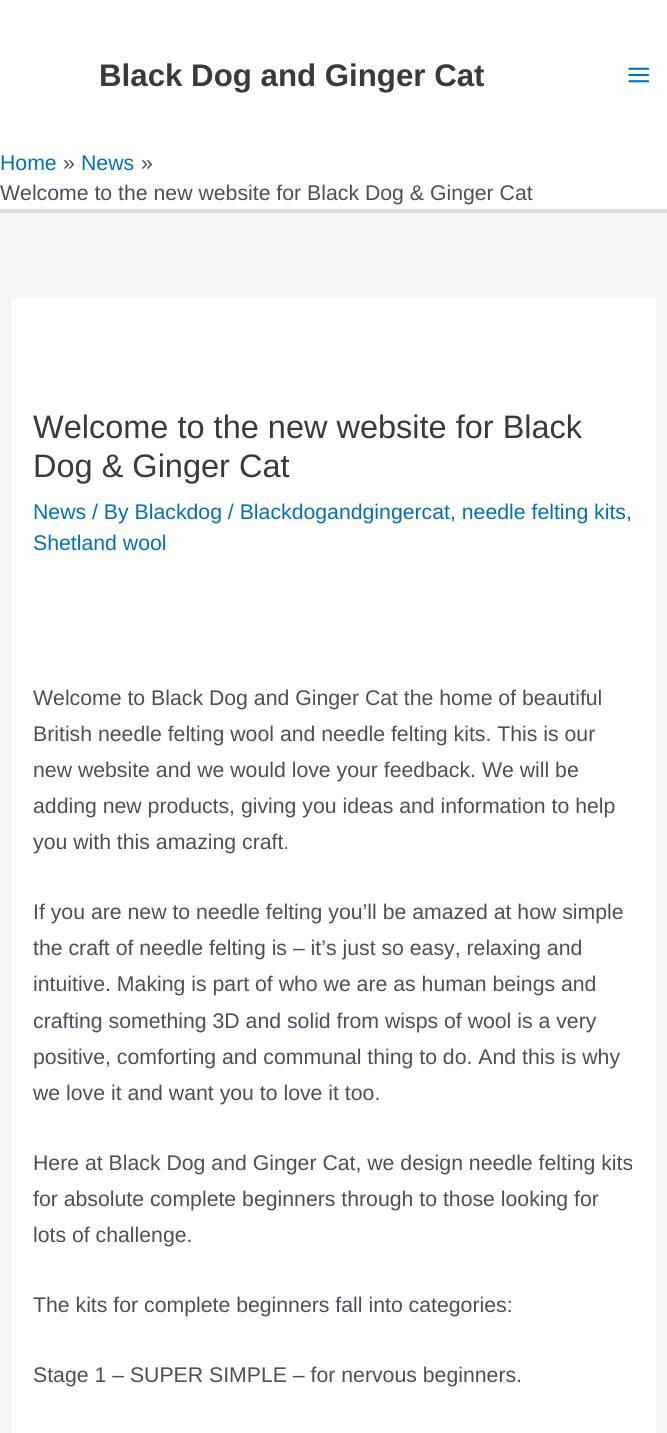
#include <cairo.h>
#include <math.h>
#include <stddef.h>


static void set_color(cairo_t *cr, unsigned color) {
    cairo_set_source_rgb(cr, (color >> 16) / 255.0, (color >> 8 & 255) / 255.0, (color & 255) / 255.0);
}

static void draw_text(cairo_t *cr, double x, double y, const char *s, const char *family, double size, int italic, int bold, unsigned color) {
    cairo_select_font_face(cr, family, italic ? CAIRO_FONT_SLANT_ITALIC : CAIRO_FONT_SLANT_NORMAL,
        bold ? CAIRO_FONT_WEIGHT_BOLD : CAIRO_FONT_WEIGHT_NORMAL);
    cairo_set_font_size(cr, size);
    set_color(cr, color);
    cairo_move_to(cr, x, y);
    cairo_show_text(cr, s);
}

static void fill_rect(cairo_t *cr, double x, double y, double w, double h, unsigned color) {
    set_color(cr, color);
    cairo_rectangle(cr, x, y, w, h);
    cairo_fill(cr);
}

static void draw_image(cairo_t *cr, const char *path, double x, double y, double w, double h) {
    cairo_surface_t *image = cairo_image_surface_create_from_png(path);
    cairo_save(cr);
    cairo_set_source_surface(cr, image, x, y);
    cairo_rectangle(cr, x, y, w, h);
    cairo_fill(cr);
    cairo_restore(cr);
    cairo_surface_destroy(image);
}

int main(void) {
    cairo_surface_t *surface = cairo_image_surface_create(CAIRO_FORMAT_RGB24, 667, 1433);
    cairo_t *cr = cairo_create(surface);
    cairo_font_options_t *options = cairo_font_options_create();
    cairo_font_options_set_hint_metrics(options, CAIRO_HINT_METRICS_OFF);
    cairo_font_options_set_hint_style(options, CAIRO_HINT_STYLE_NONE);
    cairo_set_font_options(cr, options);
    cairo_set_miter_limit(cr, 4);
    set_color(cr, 0xF5F5F5);
    cairo_paint(cr);
    fill_rect(cr, 0, 0, 667, 209, 0xFFFFFF);
    fill_rect(cr, 0, 209, 667, 4, 0xDDDDDD);
    draw_text(cr, 99, 86, "Black Dog and Ginger Cat", "Liberation Sans", 31.25, 0, 1, 0x3A3A3A);
    draw_image(cr, "assets/img1.png", 628, 67, 22, 16);
    draw_text(cr, 0, 170, "Home", "Liberation Sans", 21.25, 0, 0, 0x0170B9);
    draw_text(cr, 63, 170, "»", "Liberation Sans", 21.25, 0, 0, 0x4B4F58);
    draw_text(cr, 81, 170, "News", "Liberation Sans", 21.25, 0, 0, 0x0170B9);
    draw_text(cr, 141, 170, "»", "Liberation Sans", 21.25, 0, 0, 0x4B4F58);
    draw_text(cr, 0, 200, "Welcome to the new website for Black Dog & Ginger Cat", "Liberation Sans", 21.25, 0, 0, 0x4B4F58);
    fill_rect(cr, 11, 298, 645, 1135, 0xFFFFFF);
    draw_text(cr, 33, 438, "Welcome to the new website for Black", "Liberation Sans", 32.5, 0, 0, 0x3A3A3A);
    draw_text(cr, 33, 477, "Dog & Ginger Cat", "Liberation Sans", 32.5, 0, 0, 0x3A3A3A);
    draw_text(cr, 33, 519, "News / By Blackdog / Blackdogandgingercat, needle felting kits,", "Liberation Sans", 21.25, 0, 0, 0x0170B9);
    draw_text(cr, 33, 550, "Shetland wool", "Liberation Sans", 21.25, 0, 0, 0x0170B9);
    draw_text(cr, 33, 705, "Welcome to Black Dog and Ginger Cat the home of beautiful", "Liberation Sans", 21.25, 0, 0, 0x4B4F58);
    draw_text(cr, 33, 741, "British needle felting wool and needle felting kits. This is our", "Liberation Sans", 21.25, 0, 0, 0x4B4F58);
    draw_text(cr, 33, 777, "new website and we would love your feedback. We will be", "Liberation Sans", 21.25, 0, 0, 0x4B4F58);
    draw_text(cr, 33, 813, "adding new products, giving you ideas and information to help", "Liberation Sans", 21.25, 0, 0, 0x4B4F58);
    draw_text(cr, 33, 849, "you with this amazing craft.", "Liberation Sans", 21.25, 0, 0, 0x4B4F58);
    draw_text(cr, 33, 919, "If you are new to needle felting you’ll be amazed at how simple", "Liberation Sans", 21.25, 0, 0, 0x4B4F58);
    draw_text(cr, 33, 955, "the craft of needle felting is – it’s just so easy, relaxing and", "Liberation Sans", 21.25, 0, 0, 0x4B4F58);
    draw_text(cr, 33, 991, "intuitive. Making is part of who we are as human beings and", "Liberation Sans", 21.25, 0, 0, 0x4B4F58);
    draw_text(cr, 33, 1028, "crafting something 3D and solid from wisps of wool is a very", "Liberation Sans", 21.25, 0, 0, 0x4B4F58);
    draw_text(cr, 33, 1064, "positive, comforting and communal thing to do. And this is why", "Liberation Sans", 21.25, 0, 0, 0x4B4F58);
    draw_text(cr, 33, 1100, "we love it and want you to love it too.", "Liberation Sans", 21.25, 0, 0, 0x4B4F58);
    draw_text(cr, 33, 1170, "Here at Black Dog and Ginger Cat, we design needle felting kits", "Liberation Sans", 21.25, 0, 0, 0x4B4F58);
    draw_text(cr, 33, 1206, "for absolute complete beginners through to those looking for", "Liberation Sans", 21.25, 0, 0, 0x4B4F58);
    draw_text(cr, 33, 1242, "lots of challenge.", "Liberation Sans", 21.25, 0, 0, 0x4B4F58);
    draw_text(cr, 33, 1312, "The kits for complete beginners fall into categories:", "Liberation Sans", 21.25, 0, 0, 0x4B4F58);
    draw_text(cr, 33, 1382, "Stage 1 – SUPER SIMPLE – for nervous beginners.", "Liberation Sans", 21.25, 0, 0, 0x4B4F58);
    cairo_surface_write_to_png(surface, "output.png");
    cairo_font_options_destroy(options);
    cairo_destroy(cr);
    cairo_surface_destroy(surface);
    return 0;
}
